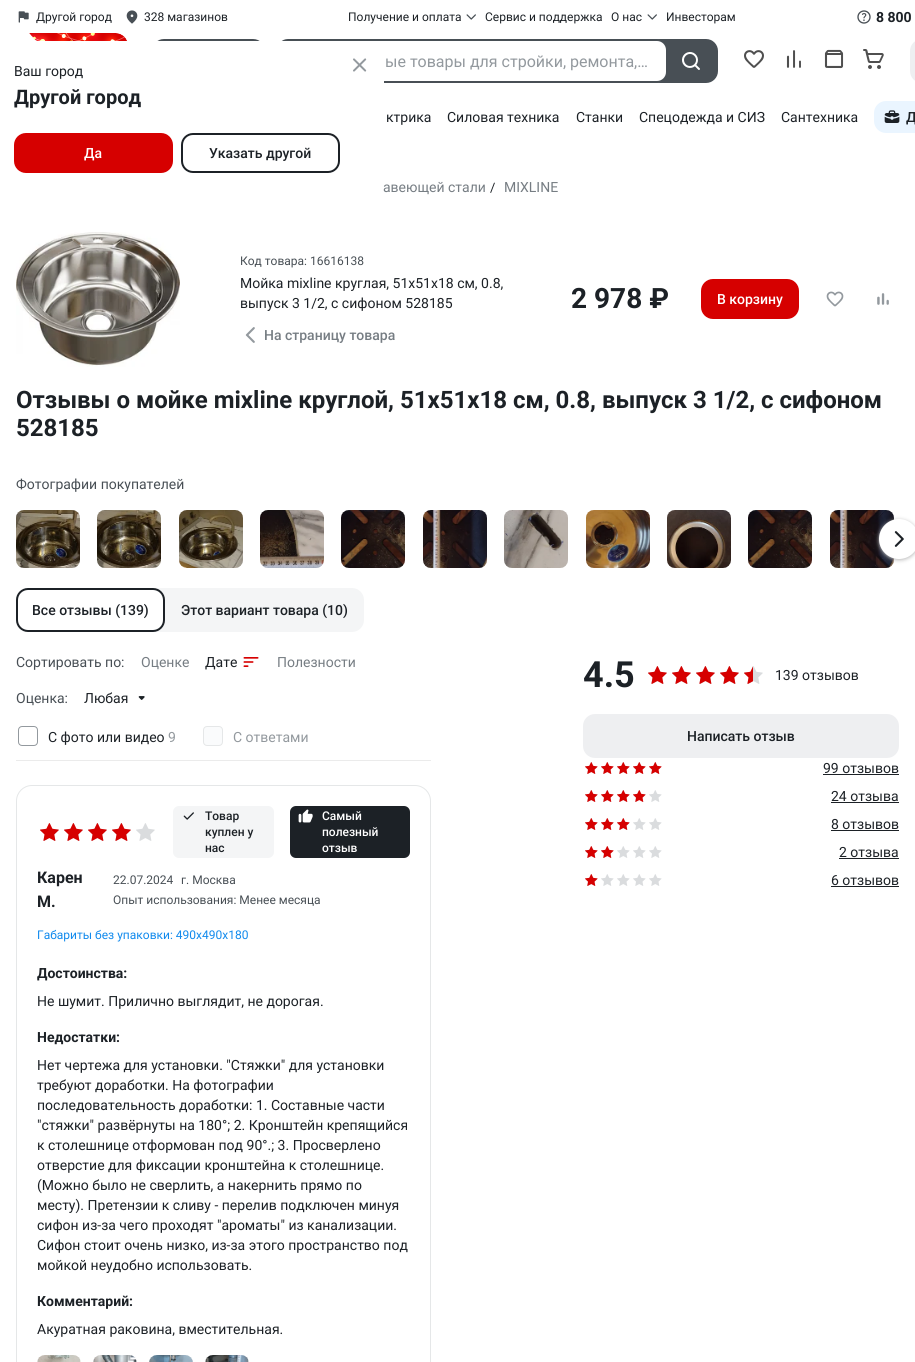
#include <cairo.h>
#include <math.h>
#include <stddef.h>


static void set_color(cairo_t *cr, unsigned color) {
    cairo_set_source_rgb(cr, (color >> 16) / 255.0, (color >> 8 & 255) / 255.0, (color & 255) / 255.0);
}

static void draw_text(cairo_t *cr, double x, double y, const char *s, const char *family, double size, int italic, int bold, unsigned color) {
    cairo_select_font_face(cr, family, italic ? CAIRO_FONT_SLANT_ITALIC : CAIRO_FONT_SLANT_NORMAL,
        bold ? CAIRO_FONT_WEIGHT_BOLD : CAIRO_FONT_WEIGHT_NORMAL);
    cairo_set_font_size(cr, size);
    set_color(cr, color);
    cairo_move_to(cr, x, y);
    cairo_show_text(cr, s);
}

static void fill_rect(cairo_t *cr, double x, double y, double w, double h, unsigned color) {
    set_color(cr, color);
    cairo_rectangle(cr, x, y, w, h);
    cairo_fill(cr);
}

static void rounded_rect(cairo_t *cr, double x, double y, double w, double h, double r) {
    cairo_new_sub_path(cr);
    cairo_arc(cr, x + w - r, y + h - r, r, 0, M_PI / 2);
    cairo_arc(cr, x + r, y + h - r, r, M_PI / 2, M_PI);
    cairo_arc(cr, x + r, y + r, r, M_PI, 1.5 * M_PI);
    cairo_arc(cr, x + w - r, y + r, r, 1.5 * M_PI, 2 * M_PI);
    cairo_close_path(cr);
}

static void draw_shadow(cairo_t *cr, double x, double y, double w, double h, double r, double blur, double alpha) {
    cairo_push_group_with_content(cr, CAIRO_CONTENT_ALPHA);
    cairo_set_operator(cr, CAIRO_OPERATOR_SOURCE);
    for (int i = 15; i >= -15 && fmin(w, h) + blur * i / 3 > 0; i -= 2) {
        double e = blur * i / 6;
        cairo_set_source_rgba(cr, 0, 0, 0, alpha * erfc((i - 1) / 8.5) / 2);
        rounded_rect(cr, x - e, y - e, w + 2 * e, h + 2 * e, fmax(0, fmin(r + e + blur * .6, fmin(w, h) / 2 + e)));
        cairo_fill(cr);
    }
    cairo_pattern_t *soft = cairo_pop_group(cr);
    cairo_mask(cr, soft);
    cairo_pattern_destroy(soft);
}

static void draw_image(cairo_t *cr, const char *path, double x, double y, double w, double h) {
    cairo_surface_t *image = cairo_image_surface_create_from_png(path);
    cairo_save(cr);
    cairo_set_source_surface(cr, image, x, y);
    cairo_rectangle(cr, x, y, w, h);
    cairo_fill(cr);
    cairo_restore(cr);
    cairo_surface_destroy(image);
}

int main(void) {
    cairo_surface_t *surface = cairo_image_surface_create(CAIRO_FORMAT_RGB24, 915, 1362);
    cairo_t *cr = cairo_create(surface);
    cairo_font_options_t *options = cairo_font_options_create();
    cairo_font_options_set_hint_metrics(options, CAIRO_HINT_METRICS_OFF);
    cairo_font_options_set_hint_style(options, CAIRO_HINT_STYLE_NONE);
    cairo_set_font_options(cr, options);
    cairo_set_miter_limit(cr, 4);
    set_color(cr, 0xFFFFFF);
    cairo_paint(cr);
    draw_image(cr, "assets/img1.png", 18, 11, 11, 12);
    draw_text(cr, 36, 21, "Другой город", "Roboto", 12, 0, 0, 0x1C2126);
    draw_image(cr, "assets/img2.png", 126, 10, 12, 14);
    draw_text(cr, 144, 21, "328 магазинов", "Roboto", 12, 0, 0, 0x1C2126);
    draw_text(cr, 348, 21, "Получение и оплата", "Roboto", 12, 0, 0, 0x1C2126);
    draw_image(cr, "assets/img3.png", 466, 14, 10, 6);
    draw_text(cr, 485, 21, "Сервис и поддержка", "Roboto", 12, 0, 0, 0x1C2126);
    draw_text(cr, 611, 21, "О нас", "Roboto", 12, 0, 0, 0x1C2126);
    draw_image(cr, "assets/img3.png", 647, 14, 10, 6);
    draw_text(cr, 666, 21, "Инвесторам", "Roboto", 12, 0, 0, 0x1C2126);
    draw_image(cr, "assets/img4.png", 857, 10, 14, 14);
    draw_text(cr, 876, 22, "8 800", "Roboto", 14, 0, 1, 0x1C2126);
    draw_image(cr, "assets/img5.png", 29, 33, 98, 8);
    set_color(cr, 0x484F55);
    rounded_rect(cr, 152, 39, 113, 44, 12);
    cairo_fill(cr);
    rounded_rect(cr, 648, 39, 70, 44, 12);
    cairo_fill(cr);
    set_color(cr, 0xFFFFFF);
    rounded_rect(cr, 278, 40, 389, 42, 10);
    cairo_fill_preserve(cr);
    set_color(cr, 0x484F55);
    cairo_stroke(cr);
    draw_text(cr, 385, 67, "ые товары для стройки, ремонта,…", "Roboto", 16, 0, 0, 0x93999E);
    draw_image(cr, "assets/img6.png", 682, 52, 18, 18);
    draw_image(cr, "assets/img7.png", 744, 50, 20, 18);
    draw_image(cr, "assets/img8.png", 786, 50, 15, 18);
    draw_image(cr, "assets/img9.png", 824, 49, 20, 20);
    draw_image(cr, "assets/img10.png", 863, 49, 21, 20);
    set_color(cr, 0xEEEFF1);
    rounded_rect(cr, 910, 39, 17, 44, 12);
    cairo_fill(cr);
    draw_text(cr, 386, 122, "ктрика", "Roboto", 14, 0, 0, 0x1C2126);
    draw_text(cr, 447, 122, "Силовая техника", "Roboto", 14, 0, 0, 0x1C2126);
    draw_text(cr, 576, 122, "Станки", "Roboto", 14, 0, 0, 0x1C2126);
    draw_text(cr, 639, 122, "Спецодежда и СИЗ", "Roboto", 14, 0, 0, 0x1C2126);
    draw_text(cr, 781, 122, "Сантехника", "Roboto", 14, 0, 0, 0x1C2126);
    set_color(cr, 0xEAF5FF);
    rounded_rect(cr, 874, 101, 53, 32, 12);
    cairo_fill(cr);
    draw_image(cr, "assets/img11.png", 884, 110, 16, 13);
    draw_text(cr, 906, 122, "Д", "Roboto Medium", 14, 0, 0, 0x1C2126);
    draw_text(cr, 383, 192, "авеющей стали", "Roboto", 14, 0, 0, 0x767D83);
    draw_text(cr, 490, 192, "/", "Roboto", 13, 0, 0, 0x1C2126);
    draw_text(cr, 504, 192, "MIXLINE", "Roboto", 14, 0, 0, 0x767D83);
    draw_image(cr, "assets/img12.png", 16, 232, 164, 135);
    draw_text(cr, 240, 265, "Код товара: 16616138", "Roboto", 12, 0, 0, 0x484F55);
    draw_text(cr, 240, 288, "Мойка mixline круглая, 51х51х18 см, 0.8,", "Roboto", 14, 0, 0, 0x1C2126);
    draw_text(cr, 240, 308, "выпуск 3 1/2, с сифоном 528185", "Roboto", 14, 0, 0, 0x1C2126);
    draw_image(cr, "assets/img13.png", 245, 327, 10, 16);
    draw_text(cr, 264, 340, "На страницу товара", "Roboto Medium", 14, 0, 0, 0x767D83);
    draw_text(cr, 571, 308, "2 978 ₽", "Roboto", 28, 0, 1, 0x1C2126);
    set_color(cr, 0xD60000);
    rounded_rect(cr, 701, 279, 98, 40, 12);
    cairo_fill(cr);
    draw_text(cr, 717, 304, "В корзину", "Roboto Medium", 14, 0, 0, 0xFFFFFF);
    draw_image(cr, "assets/img14.png", 826, 291, 18, 16);
    draw_image(cr, "assets/img15.png", 877, 293, 12, 12);
    draw_text(cr, 16, 408, "Отзывы о мойке mixline круглой, 51х51х18 см, 0.8, выпуск 3 1/2, с сифоном", "Roboto", 24, 0, 1, 0x1C2126);
    draw_text(cr, 16, 436, "528185", "Roboto", 24, 0, 1, 0x1C2126);
    draw_text(cr, 16, 489, "Фотографии покупателей", "Roboto", 14, 0, 0, 0x484F55);
    set_color(cr, 0xEFEFEF);
    rounded_rect(cr, 16, 510, 64, 58, 8);
    cairo_fill(cr);
    draw_image(cr, "assets/img16.png", 16, 510, 64, 58);
    rounded_rect(cr, 97, 510, 64, 58, 8);
    cairo_fill(cr);
    draw_image(cr, "assets/img17.png", 97, 510, 64, 58);
    rounded_rect(cr, 179, 510, 64, 58, 8);
    cairo_fill(cr);
    draw_image(cr, "assets/img18.png", 179, 510, 64, 58);
    rounded_rect(cr, 260, 510, 64, 58, 8);
    cairo_fill(cr);
    draw_image(cr, "assets/img19.png", 260, 510, 64, 58);
    rounded_rect(cr, 341, 510, 64, 58, 8);
    cairo_fill(cr);
    draw_image(cr, "assets/img20.png", 341, 510, 64, 58);
    rounded_rect(cr, 423, 510, 64, 58, 8);
    cairo_fill(cr);
    draw_image(cr, "assets/img21.png", 423, 510, 64, 58);
    rounded_rect(cr, 504, 510, 64, 58, 8);
    cairo_fill(cr);
    draw_image(cr, "assets/img22.png", 504, 510, 64, 58);
    rounded_rect(cr, 586, 510, 64, 58, 8);
    cairo_fill(cr);
    draw_image(cr, "assets/img23.png", 586, 510, 64, 58);
    rounded_rect(cr, 667, 510, 64, 58, 8);
    cairo_fill(cr);
    draw_image(cr, "assets/img24.png", 667, 510, 64, 58);
    rounded_rect(cr, 748, 510, 64, 58, 8);
    cairo_fill(cr);
    draw_image(cr, "assets/img25.png", 748, 510, 64, 58);
    rounded_rect(cr, 830, 510, 64, 58, 8);
    cairo_fill(cr);
    draw_image(cr, "assets/img21.png", 830, 510, 64, 58);
    set_color(cr, 0xB8B8B8);
    draw_shadow(cr, 879, 520, 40, 40, 20, 2, 1);
    set_color(cr, 0xFFFFFF);
    cairo_arc(cr, 899, 539, 20, 0, 2 * M_PI);
    cairo_fill(cr);
    draw_image(cr, "assets/img26.png", 894, 531, 10, 16);
    set_color(cr, 0xF4F5F6);
    rounded_rect(cr, 16, 588, 348, 44, 12);
    cairo_fill(cr);
    set_color(cr, 0xFFFFFF);
    rounded_rect(cr, 17, 589, 147, 42, 11);
    cairo_fill_preserve(cr);
    set_color(cr, 0x1C2126);
    cairo_stroke(cr);
    draw_text(cr, 32, 615, "Все отзывы (139)", "Roboto Medium", 14, 0, 0, 0x1C2126);
    draw_text(cr, 181, 615, "Этот вариант товара (10)", "Roboto Medium", 14, 0, 0, 0x1C2126);
    fill_rect(cr, 16, 760, 415, 1, 0xEBEBEB);
    draw_text(cr, 16, 667, "Сортировать по:", "Roboto", 14, 0, 0, 0x484F55);
    draw_text(cr, 141, 667, "Оценке", "Roboto", 14, 0, 0, 0x767D83);
    draw_text(cr, 205, 667, "Дате", "Roboto", 14, 0, 0, 0x1C2126);
    draw_image(cr, "assets/img27.png", 243, 657, 16, 10);
    draw_text(cr, 277, 667, "Полезности", "Roboto", 14, 0, 0, 0x767D83);
    draw_text(cr, 16, 703, "Оценка:", "Roboto", 14, 0, 0, 0x484F55);
    draw_text(cr, 84, 703, "Любая", "Roboto", 14, 0, 0, 0x1C2126);
    draw_image(cr, "assets/img28.png", 138, 696, 7, 4);
    rounded_rect(cr, 18.5, 726.5, 19, 19, 3.5);
    set_color(cr, 0x93999E);
    cairo_set_line_width(cr, 1);
    cairo_stroke(cr);
    draw_text(cr, 48, 742, "С фото или видео", "Roboto", 14, 0, 0, 0x1C2126);
    draw_text(cr, 168, 742, "9", "Roboto", 14, 0, 0, 0x93999E);
    set_color(cr, 0xFAFBFC);
    rounded_rect(cr, 203.5, 726.5, 19, 19, 3.5);
    cairo_fill_preserve(cr);
    set_color(cr, 0xE5E7E8);
    cairo_stroke(cr);
    draw_text(cr, 233, 742, "С ответами", "Roboto", 14, 0, 0, 0x93999E);
    rounded_rect(cr, 16.5, 785.5, 414, 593, 15.5);
    set_color(cr, 0xE5E7E8);
    cairo_stroke(cr);
    draw_image(cr, "assets/img29.png", 40, 823, 19, 18);
    draw_image(cr, "assets/img29.png", 64, 823, 19, 18);
    draw_image(cr, "assets/img29.png", 88, 823, 19, 18);
    draw_image(cr, "assets/img29.png", 112, 823, 19, 18);
    draw_image(cr, "assets/img29.png", 136, 823, 19, 18);
    draw_image(cr, "assets/img30.png", 40, 823, 19, 18);
    draw_image(cr, "assets/img30.png", 64, 823, 19, 18);
    draw_image(cr, "assets/img30.png", 88, 823, 19, 18);
    draw_image(cr, "assets/img30.png", 112, 823, 19, 18);
    set_color(cr, 0xF4F5F6);
    rounded_rect(cr, 173, 806, 101, 52, 6);
    cairo_fill(cr);
    draw_image(cr, "assets/img31.png", 183, 812, 11, 8);
    draw_text(cr, 205, 820, "Товар", "Roboto Medium", 12, 0, 0, 0x1C2126);
    draw_text(cr, 205, 836, "куплен у", "Roboto Medium", 12, 0, 0, 0x1C2126);
    draw_text(cr, 205, 852, "нас", "Roboto Medium", 12, 0, 0, 0x1C2126);
    rounded_rect(cr, 290, 806, 120, 52, 6);
    cairo_fill(cr);
    draw_image(cr, "assets/img32.png", 298, 809, 15, 14);
    draw_text(cr, 322, 820, "Самый", "Roboto Medium", 12, 0, 0, 0xFFFFFF);
    draw_text(cr, 322, 836, "полезный", "Roboto Medium", 12, 0, 0, 0xFFFFFF);
    draw_text(cr, 322, 852, "отзыв", "Roboto Medium", 12, 0, 0, 0xFFFFFF);
    draw_text(cr, 37, 883, "Карен", "Roboto", 16, 0, 1, 0x1C2126);
    draw_text(cr, 37, 907, "М.", "Roboto", 16, 0, 1, 0x1C2126);
    draw_text(cr, 113, 884, "22.07.2024", "Roboto", 12, 0, 0, 0x484F55);
    draw_text(cr, 181, 884, "г. Москва", "Roboto", 12, 0, 0, 0x484F55);
    draw_text(cr, 113, 904, "Опыт использования: Менее месяца", "Roboto", 12, 0, 0, 0x484F55);
    draw_text(cr, 37, 939, "Габариты без упаковки: 490х490х180", "Roboto", 12, 0, 0, 0x118AED);
    draw_text(cr, 37, 978, "Достоинства:", "Roboto", 14, 0, 1, 0x1C2126);
    draw_text(cr, 37, 1006, "Не шумит. Прилично выглядит, не дорогая.", "Roboto", 14, 0, 0, 0x1C2126);
    draw_text(cr, 37, 1042, "Недостатки:", "Roboto", 14, 0, 1, 0x1C2126);
    draw_text(cr, 37, 1070, "Нет чертежа для установки. \"Стяжки\" для установки", "Roboto", 14, 0, 0, 0x1C2126);
    draw_text(cr, 37, 1090, "требуют доработки. На фотографии", "Roboto", 14, 0, 0, 0x1C2126);
    draw_text(cr, 37, 1110, "последовательность доработки: 1. Составные части", "Roboto", 14, 0, 0, 0x1C2126);
    draw_text(cr, 37, 1130, "\"стяжки\" развёрнуты на 180°; 2. Кронштейн крепящийся", "Roboto", 14, 0, 0, 0x1C2126);
    draw_text(cr, 37, 1150, "к столешнице отформован под 90°.; 3. Просверлено", "Roboto", 14, 0, 0, 0x1C2126);
    draw_text(cr, 37, 1170, "отверстие для фиксации кронштейна к столешнице.", "Roboto", 14, 0, 0, 0x1C2126);
    draw_text(cr, 37, 1190, "(Можно было не сверлить, а накернить прямо по", "Roboto", 14, 0, 0, 0x1C2126);
    draw_text(cr, 37, 1210, "месту). Претензии к сливу - перелив подключен минуя", "Roboto", 14, 0, 0, 0x1C2126);
    draw_text(cr, 37, 1230, "сифон из-за чего проходят \"ароматы\" из канализации.", "Roboto", 14, 0, 0, 0x1C2126);
    draw_text(cr, 37, 1250, "Сифон стоит очень низко, из-за этого пространство под", "Roboto", 14, 0, 0, 0x1C2126);
    draw_text(cr, 37, 1270, "мойкой неудобно использовать.", "Roboto", 14, 0, 0, 0x1C2126);
    draw_text(cr, 37, 1306, "Комментарий:", "Roboto", 14, 0, 1, 0x1C2126);
    draw_text(cr, 37, 1334, "Акуратная раковина, вместительная.", "Roboto", 14, 0, 0, 0x1C2126);
    draw_image(cr, "assets/img33.png", 37, 1355, 44, 7);
    draw_image(cr, "assets/img34.png", 93, 1355, 44, 7);
    draw_image(cr, "assets/img35.png", 149, 1355, 44, 7);
    draw_image(cr, "assets/img36.png", 205, 1355, 44, 7);
    draw_text(cr, 583, 687, "4.5", "Roboto", 36, 0, 1, 0x1C2126);
    draw_image(cr, "assets/img29.png", 648, 666, 19, 18);
    draw_image(cr, "assets/img29.png", 672, 666, 19, 18);
    draw_image(cr, "assets/img29.png", 696, 666, 19, 18);
    draw_image(cr, "assets/img29.png", 720, 666, 19, 18);
    draw_image(cr, "assets/img29.png", 744, 666, 19, 18);
    draw_image(cr, "assets/img30.png", 648, 666, 19, 18);
    draw_image(cr, "assets/img30.png", 672, 666, 19, 18);
    draw_image(cr, "assets/img30.png", 696, 666, 19, 18);
    draw_image(cr, "assets/img30.png", 720, 666, 19, 18);
    draw_image(cr, "assets/img37.png", 744, 666, 9, 18);
    draw_text(cr, 775, 680, "139 отзывов", "Roboto", 14, 0, 0, 0x1C2126);
    set_color(cr, 0xEEEFF1);
    rounded_rect(cr, 583, 714, 316, 44, 12);
    cairo_fill(cr);
    draw_text(cr, 687, 741, "Написать отзыв", "Roboto Medium", 14, 0, 0, 0x1C2126);
    draw_image(cr, "assets/img38.png", 585, 762, 13, 12);
    draw_image(cr, "assets/img38.png", 601, 762, 13, 12);
    draw_image(cr, "assets/img38.png", 617, 762, 13, 12);
    draw_image(cr, "assets/img38.png", 633, 762, 13, 12);
    draw_image(cr, "assets/img38.png", 649, 762, 13, 12);
    draw_image(cr, "assets/img39.png", 585, 762, 13, 12);
    draw_image(cr, "assets/img39.png", 601, 762, 13, 12);
    draw_image(cr, "assets/img39.png", 617, 762, 13, 12);
    draw_image(cr, "assets/img39.png", 633, 762, 13, 12);
    draw_image(cr, "assets/img39.png", 649, 762, 13, 12);
    draw_text(cr, 823, 773, "99 отзывов", "Roboto", 14, 0, 0, 0x1C2126);
    fill_rect(cr, 823, 774, 76, 1, 0x1C2126);
    draw_image(cr, "assets/img38.png", 585, 790, 13, 12);
    draw_image(cr, "assets/img38.png", 601, 790, 13, 12);
    draw_image(cr, "assets/img38.png", 617, 790, 13, 12);
    draw_image(cr, "assets/img38.png", 633, 790, 13, 12);
    draw_image(cr, "assets/img38.png", 649, 790, 13, 12);
    draw_image(cr, "assets/img39.png", 585, 790, 13, 12);
    draw_image(cr, "assets/img39.png", 601, 790, 13, 12);
    draw_image(cr, "assets/img39.png", 617, 790, 13, 12);
    draw_image(cr, "assets/img39.png", 633, 790, 13, 12);
    draw_text(cr, 831, 801, "24 отзыва", "Roboto", 14, 0, 0, 0x1C2126);
    fill_rect(cr, 831, 802, 68, 1, 0x1C2126);
    draw_image(cr, "assets/img38.png", 585, 818, 13, 12);
    draw_image(cr, "assets/img38.png", 601, 818, 13, 12);
    draw_image(cr, "assets/img38.png", 617, 818, 13, 12);
    draw_image(cr, "assets/img38.png", 633, 818, 13, 12);
    draw_image(cr, "assets/img38.png", 649, 818, 13, 12);
    draw_image(cr, "assets/img39.png", 585, 818, 13, 12);
    draw_image(cr, "assets/img39.png", 601, 818, 13, 12);
    draw_image(cr, "assets/img39.png", 617, 818, 13, 12);
    draw_text(cr, 831, 829, "8 отзывов", "Roboto", 14, 0, 0, 0x1C2126);
    fill_rect(cr, 831, 830, 68, 1, 0x1C2126);
    draw_image(cr, "assets/img38.png", 585, 846, 13, 12);
    draw_image(cr, "assets/img38.png", 601, 846, 13, 12);
    draw_image(cr, "assets/img38.png", 617, 846, 13, 12);
    draw_image(cr, "assets/img38.png", 633, 846, 13, 12);
    draw_image(cr, "assets/img38.png", 649, 846, 13, 12);
    draw_image(cr, "assets/img39.png", 585, 846, 13, 12);
    draw_image(cr, "assets/img39.png", 601, 846, 13, 12);
    draw_text(cr, 839, 857, "2 отзыва", "Roboto", 14, 0, 0, 0x1C2126);
    fill_rect(cr, 839, 858, 60, 1, 0x1C2126);
    draw_image(cr, "assets/img38.png", 585, 874, 13, 12);
    draw_image(cr, "assets/img38.png", 601, 874, 13, 12);
    draw_image(cr, "assets/img38.png", 617, 874, 13, 12);
    draw_image(cr, "assets/img38.png", 633, 874, 13, 12);
    draw_image(cr, "assets/img38.png", 649, 874, 13, 12);
    draw_image(cr, "assets/img39.png", 585, 874, 13, 12);
    draw_text(cr, 831, 885, "6 отзывов", "Roboto", 14, 0, 0, 0x1C2126);
    fill_rect(cr, 831, 886, 68, 1, 0x1C2126);
    set_color(cr, 0xFFFFFF);
    rounded_rect(cr, -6, 41, 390, 152, 16);
    cairo_fill(cr);
    cairo_new_path(cr);
    cairo_move_to(cr, 21, 30.5);
    cairo_line_to(cr, 13, 39.5);
    cairo_curve_to(cr, 12, 40.5, 11, 41, 10, 41);
    cairo_line_to(cr, 38, 41);
    cairo_curve_to(cr, 32.5, 41, 26.5, 24, 21, 30.5);
    cairo_close_path(cr);
    cairo_fill(cr);
    draw_text(cr, 14, 76, "Ваш город", "Roboto", 14, 0, 0, 0x1C2126);
    draw_text(cr, 14, 104, "Другой город", "Roboto", 20, 0, 1, 0x1C2126);
    set_color(cr, 0xD60000);
    rounded_rect(cr, 14, 133, 159, 40, 12);
    cairo_fill(cr);
    draw_text(cr, 84, 158, "Да", "Roboto Medium", 14, 0, 0, 0xFFFFFF);
    rounded_rect(cr, 182, 134, 157, 38, 11);
    set_color(cr, 0x1C2126);
    cairo_set_line_width(cr, 2);
    cairo_stroke(cr);
    draw_text(cr, 209, 158, "Указать другой", "Roboto Medium", 14, 0, 0, 0x1C2126);
    draw_image(cr, "assets/img40.png", 353, 58, 14, 14);
    cairo_surface_write_to_png(surface, "output.png");
    cairo_font_options_destroy(options);
    cairo_destroy(cr);
    cairo_surface_destroy(surface);
    return 0;
}
